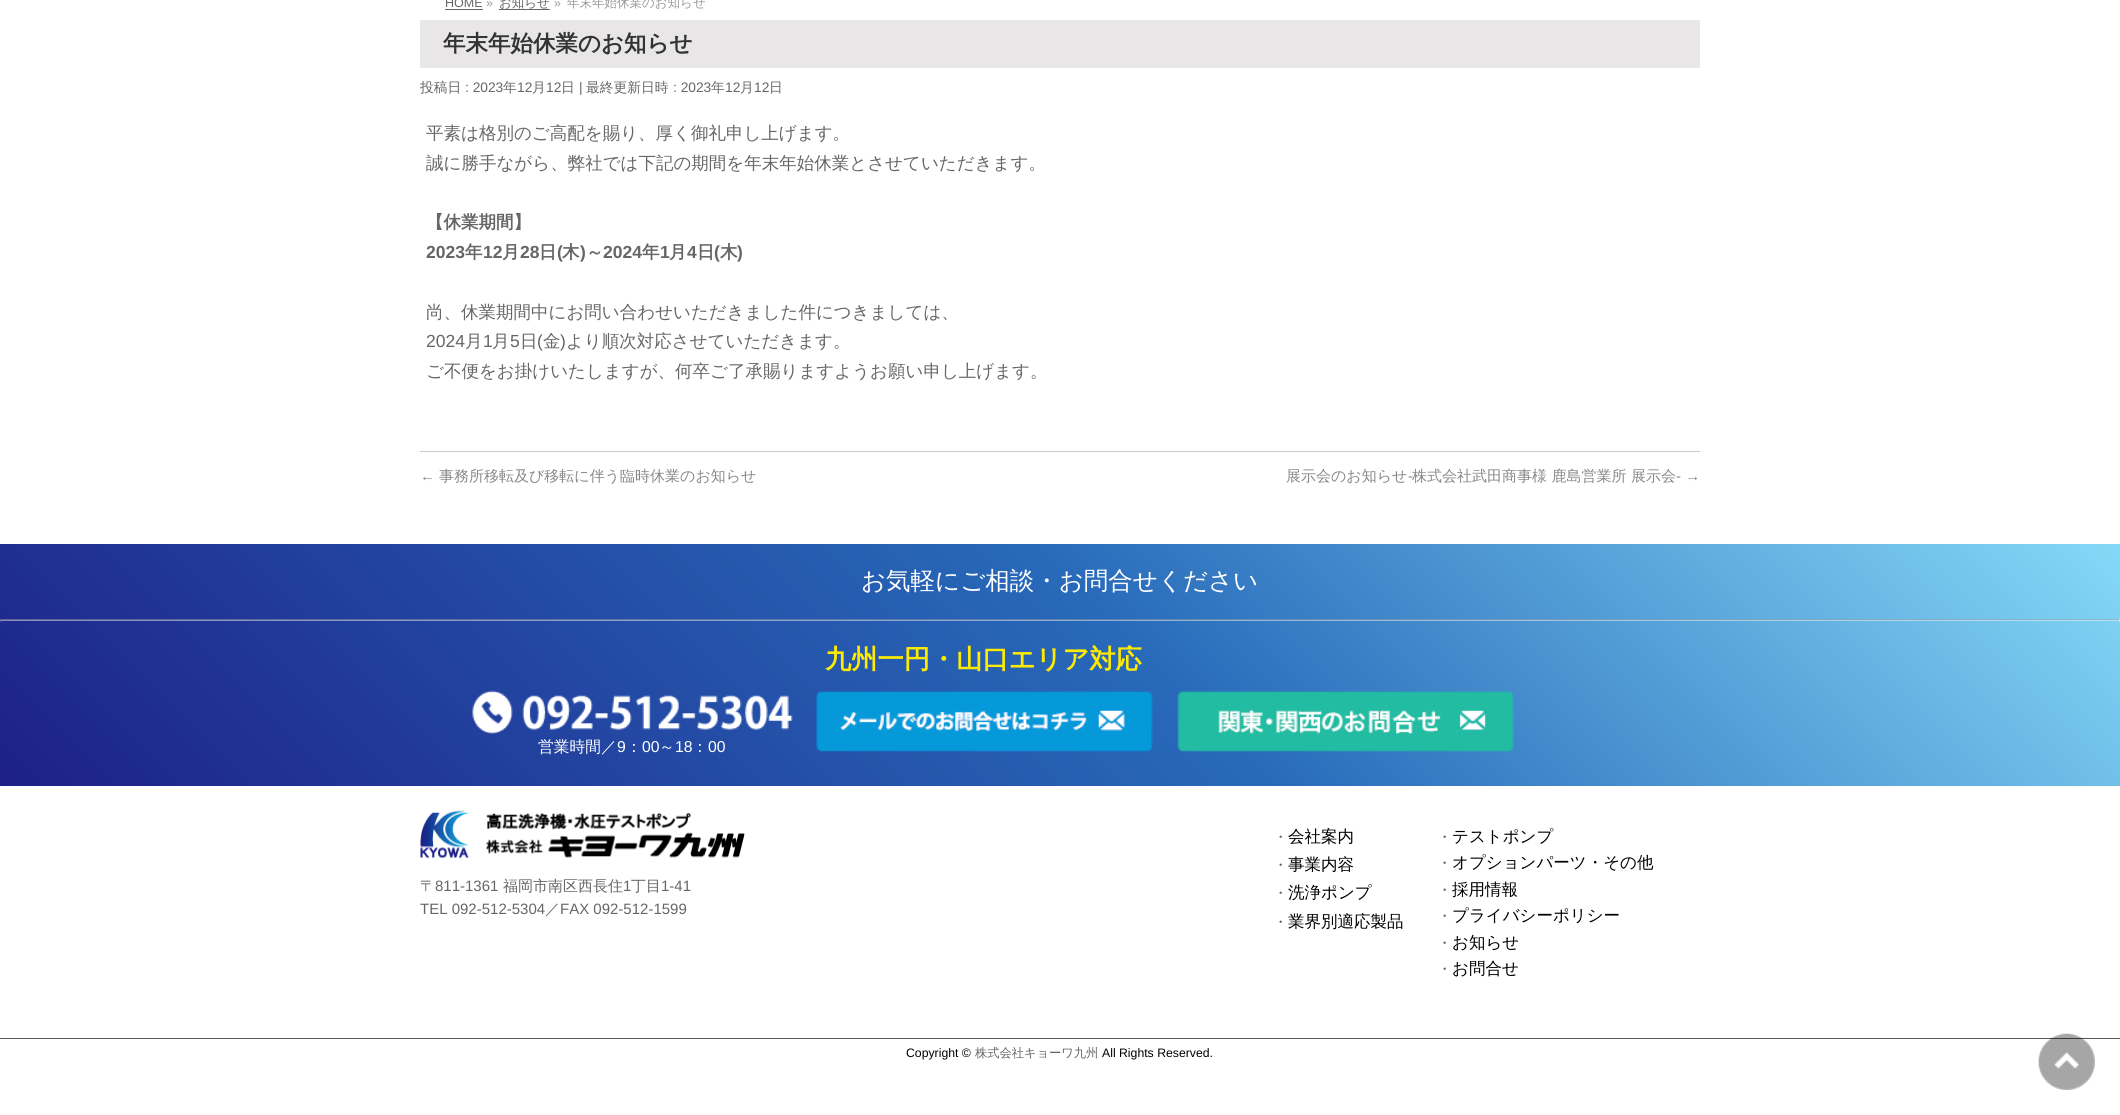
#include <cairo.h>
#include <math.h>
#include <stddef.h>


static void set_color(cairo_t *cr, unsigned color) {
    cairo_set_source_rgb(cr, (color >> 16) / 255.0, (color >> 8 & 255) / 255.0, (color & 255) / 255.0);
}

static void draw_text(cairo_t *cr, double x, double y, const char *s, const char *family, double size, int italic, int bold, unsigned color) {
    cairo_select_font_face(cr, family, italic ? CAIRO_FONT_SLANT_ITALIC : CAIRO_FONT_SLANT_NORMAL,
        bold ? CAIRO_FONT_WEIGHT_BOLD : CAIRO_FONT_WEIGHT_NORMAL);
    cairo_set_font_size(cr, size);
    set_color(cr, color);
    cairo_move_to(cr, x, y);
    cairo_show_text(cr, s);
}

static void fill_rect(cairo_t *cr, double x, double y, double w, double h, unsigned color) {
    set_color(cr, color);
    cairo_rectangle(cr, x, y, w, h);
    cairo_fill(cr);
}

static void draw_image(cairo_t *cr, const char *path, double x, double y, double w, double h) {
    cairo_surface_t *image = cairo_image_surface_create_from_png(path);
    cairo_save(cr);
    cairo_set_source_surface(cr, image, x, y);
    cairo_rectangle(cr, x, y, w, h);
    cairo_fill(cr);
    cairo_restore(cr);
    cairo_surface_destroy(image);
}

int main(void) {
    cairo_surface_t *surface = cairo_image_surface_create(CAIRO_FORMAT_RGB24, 2120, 1115);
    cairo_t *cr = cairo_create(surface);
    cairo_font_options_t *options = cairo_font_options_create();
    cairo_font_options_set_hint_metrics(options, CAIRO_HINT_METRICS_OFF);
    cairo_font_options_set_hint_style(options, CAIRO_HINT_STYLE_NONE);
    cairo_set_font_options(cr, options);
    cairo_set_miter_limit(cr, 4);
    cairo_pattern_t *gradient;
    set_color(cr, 0xFFFFFF);
    cairo_paint(cr);
    draw_text(cr, 445, 7, "HOME", "Liberation Sans", 12.5, 0, 0, 0x666666);
    fill_rect(cr, 445, 9, 38, 1, 0x666666);
    draw_text(cr, 486, 7, "»", "Liberation Sans", 12.5, 0, 0, 0x999999);
    draw_text(cr, 499, 7, "お知らせ", "WenQuanYi Zen Hei Medium", 12.5, 0, 0, 0x666666);
    fill_rect(cr, 499, 9, 51, 1, 0x666666);
    draw_text(cr, 554, 7, "»", "Liberation Sans", 12.5, 0, 0, 0x999999);
    draw_text(cr, 567, 7, "年末年始休業のお知らせ", "WenQuanYi Zen Hei Medium", 12.5, 0, 0, 0x999999);
    fill_rect(cr, 420, 20, 1280, 48, 0xE8E6E6);
    draw_text(cr, 443, 51, "年末年始休業のお知らせ", "WenQuanYi Zen Hei", 22.5, 0, 1, 0x333333);
    draw_text(cr, 420, 92, "投稿日", "WenQuanYi Zen Hei Medium", 13.75, 0, 0, 0x666666);
    draw_text(cr, 465, 92, ": 2023", "Liberation Sans", 13.75, 0, 0, 0x666666);
    draw_text(cr, 503, 92, "年", "WenQuanYi Zen Hei Medium", 13.75, 0, 0, 0x666666);
    draw_text(cr, 517, 92, "12", "Liberation Sans", 13.75, 0, 0, 0x666666);
    draw_text(cr, 532, 92, "月", "WenQuanYi Zen Hei Medium", 13.75, 0, 0, 0x666666);
    draw_text(cr, 546, 92, "12", "Liberation Sans", 13.75, 0, 0, 0x666666);
    draw_text(cr, 561, 92, "日", "WenQuanYi Zen Hei Medium", 13.75, 0, 0, 0x666666);
    draw_text(cr, 579, 92, "|", "Liberation Sans", 13.75, 0, 0, 0x666666);
    draw_text(cr, 586, 92, "最終更新日時", "WenQuanYi Zen Hei Medium", 13.75, 0, 0, 0x666666);
    draw_text(cr, 673, 92, ": 2023", "Liberation Sans", 13.75, 0, 0, 0x666666);
    draw_text(cr, 711, 92, "年", "WenQuanYi Zen Hei Medium", 13.75, 0, 0, 0x666666);
    draw_text(cr, 725, 92, "12", "Liberation Sans", 13.75, 0, 0, 0x666666);
    draw_text(cr, 740, 92, "月", "WenQuanYi Zen Hei Medium", 13.75, 0, 0, 0x666666);
    draw_text(cr, 754, 92, "12", "Liberation Sans", 13.75, 0, 0, 0x666666);
    draw_text(cr, 769, 92, "日", "WenQuanYi Zen Hei Medium", 13.75, 0, 0, 0x666666);
    draw_text(cr, 426, 139, "平素は格別のご高配を賜り、厚く御礼申し上げます。", "WenQuanYi Zen Hei Medium", 17.5, 0, 0, 0x666666);
    draw_text(cr, 426, 169, "誠に勝手ながら、弊社では下記の期間を年末年始休業とさせていただきます。", "WenQuanYi Zen Hei Medium", 17.5, 0, 0, 0x666666);
    draw_text(cr, 426, 228, "【休業期間】", "WenQuanYi Zen Hei", 17.5, 0, 1, 0x666666);
    draw_text(cr, 426, 258, "2023", "Liberation Sans", 17.5, 0, 1, 0x666666);
    draw_text(cr, 465, 258, "年", "WenQuanYi Zen Hei", 17.5, 0, 1, 0x666666);
    draw_text(cr, 483, 258, "12", "Liberation Sans", 17.5, 0, 1, 0x666666);
    draw_text(cr, 502, 258, "月", "WenQuanYi Zen Hei", 17.5, 0, 1, 0x666666);
    draw_text(cr, 520, 258, "28", "Liberation Sans", 17.5, 0, 1, 0x666666);
    draw_text(cr, 539, 258, "日", "WenQuanYi Zen Hei", 17.5, 0, 1, 0x666666);
    draw_text(cr, 557, 258, "(", "Liberation Sans", 17.5, 0, 1, 0x666666);
    draw_text(cr, 562, 258, "木", "WenQuanYi Zen Hei", 17.5, 0, 1, 0x666666);
    draw_text(cr, 580, 258, ")", "Liberation Sans", 17.5, 0, 1, 0x666666);
    draw_text(cr, 586, 258, "～", "WenQuanYi Zen Hei", 17.5, 0, 1, 0x666666);
    draw_text(cr, 603, 258, "2024", "Liberation Sans", 17.5, 0, 1, 0x666666);
    draw_text(cr, 642, 258, "年", "WenQuanYi Zen Hei", 17.5, 0, 1, 0x666666);
    draw_text(cr, 660, 258, "1", "Liberation Sans", 17.5, 0, 1, 0x666666);
    draw_text(cr, 669, 258, "月", "WenQuanYi Zen Hei", 17.5, 0, 1, 0x666666);
    draw_text(cr, 687, 258, "4", "Liberation Sans", 17.5, 0, 1, 0x666666);
    draw_text(cr, 697, 258, "日", "WenQuanYi Zen Hei", 17.5, 0, 1, 0x666666);
    draw_text(cr, 714, 258, "(", "Liberation Sans", 17.5, 0, 1, 0x666666);
    draw_text(cr, 720, 258, "木", "WenQuanYi Zen Hei", 17.5, 0, 1, 0x666666);
    draw_text(cr, 737, 258, ")", "Liberation Sans", 17.5, 0, 1, 0x666666);
    draw_text(cr, 426, 318, "尚、休業期間中にお問い合わせいただきました件につきましては、", "WenQuanYi Zen Hei Medium", 17.5, 0, 0, 0x666666);
    draw_text(cr, 426, 347, "2024", "Liberation Sans", 17.5, 0, 0, 0x666666);
    draw_text(cr, 465, 347, "月", "WenQuanYi Zen Hei Medium", 17.5, 0, 0, 0x666666);
    draw_text(cr, 483, 347, "1", "Liberation Sans", 17.5, 0, 0, 0x666666);
    draw_text(cr, 492, 347, "月", "WenQuanYi Zen Hei Medium", 17.5, 0, 0, 0x666666);
    draw_text(cr, 510, 347, "5", "Liberation Sans", 17.5, 0, 0, 0x666666);
    draw_text(cr, 520, 347, "日", "WenQuanYi Zen Hei Medium", 17.5, 0, 0, 0x666666);
    draw_text(cr, 537, 347, "(", "Liberation Sans", 17.5, 0, 0, 0x666666);
    draw_text(cr, 543, 347, "金", "WenQuanYi Zen Hei Medium", 17.5, 0, 0, 0x666666);
    draw_text(cr, 560, 347, ")", "Liberation Sans", 17.5, 0, 0, 0x666666);
    draw_text(cr, 566, 347, "より順次対応させていただきます。", "WenQuanYi Zen Hei Medium", 17.5, 0, 0, 0x666666);
    draw_text(cr, 426, 377, "ご不便をお掛けいたしますが、何卒ご了承賜りますようお願い申し上げます。", "WenQuanYi Zen Hei Medium", 17.5, 0, 0, 0x666666);
    fill_rect(cr, 420, 451, 1280, 1, 0xCCCCCC);
    draw_text(cr, 420, 481, "←", "Liberation Sans", 15, 0, 0, 0x888888);
    draw_text(cr, 439, 481, "事務所移転及び移転に伴う臨時休業のお知らせ", "WenQuanYi Zen Hei Medium", 15, 0, 0, 0x888888);
    draw_text(cr, 1286, 481, "展示会のお知らせ", "WenQuanYi Zen Hei Medium", 15, 0, 0, 0x888888);
    draw_text(cr, 1408, 481, "-", "Liberation Sans", 15, 0, 0, 0x888888);
    draw_text(cr, 1412, 481, "株式会社武田商事様 鹿島営業所 展示会", "WenQuanYi Zen Hei Medium", 15, 0, 0, 0x888888);
    draw_text(cr, 1676, 481, "- →", "Liberation Sans", 15, 0, 0, 0x888888);
    gradient = cairo_pattern_create_linear(469, 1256, 1651, 74);
    cairo_pattern_add_color_stop_rgba(gradient, 0, 0.114, 0.125, 0.533, 1);
    cairo_pattern_add_color_stop_rgba(gradient, 0.54, 0.157, 0.416, 0.729, 1);
    cairo_pattern_add_color_stop_rgba(gradient, 1, 0.522, 0.851, 0.969, 1);
    cairo_set_source(cr, gradient);
    cairo_pattern_destroy(gradient);
    cairo_rectangle(cr, 0, 544, 2120, 242);
    cairo_fill(cr);
    gradient = cairo_pattern_create_linear(469, 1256, 1651, 74);
    cairo_pattern_add_color_stop_rgba(gradient, 0, 0.525, 0.529, 0.733, 1);
    cairo_pattern_add_color_stop_rgba(gradient, 0.54, 0.545, 0.675, 0.831, 1);
    cairo_pattern_add_color_stop_rgba(gradient, 1, 0.729, 0.894, 0.953, 1);
    cairo_set_source(cr, gradient);
    cairo_pattern_destroy(gradient);
    cairo_rectangle(cr, 0, 620, 2120, 1);
    cairo_fill(cr);
    gradient = cairo_pattern_create_linear(469, 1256, 1651, 74);
    cairo_pattern_add_color_stop_rgba(gradient, 0, 0.369, 0.376, 0.58, 1);
    cairo_pattern_add_color_stop_rgba(gradient, 0.54, 0.392, 0.522, 0.678, 1);
    cairo_pattern_add_color_stop_rgba(gradient, 1, 0.573, 0.737, 0.796, 1);
    cairo_set_source(cr, gradient);
    cairo_pattern_destroy(gradient);
    cairo_rectangle(cr, 0, 619, 2120, 1);
    cairo_fill(cr);
    draw_text(cr, 861, 589, "お気軽にご相談・お問合せください", "WenQuanYi Zen Hei Medium", 24.5, 0, 0, 0xFFFFFF);
    fill_rect(cr, 2119, 619, 1, 3, 0xB6E0F1);
    fill_rect(cr, 2119, 620, 1, 1, 0xD2E7F0);
    fill_rect(cr, 0, 619, 1, 3, 0x5F6597);
    draw_text(cr, 825, 668, "九州一円・山口エリア対応", "WenQuanYi Zen Hei", 26.25, 0, 1, 0xFFEB00);
    draw_image(cr, "assets/img1.png", 472, 690, 321, 44);
    draw_text(cr, 538, 752, "営業時間／", "WenQuanYi Zen Hei Medium", 15.75, 0, 0, 0xFFFFFF);
    draw_text(cr, 617, 752, "9", "Liberation Sans", 15.75, 0, 0, 0xFFFFFF);
    draw_text(cr, 626, 752, "：", "WenQuanYi Zen Hei Medium", 15.75, 0, 0, 0xFFFFFF);
    draw_text(cr, 642, 752, "00", "Liberation Sans", 15.75, 0, 0, 0xFFFFFF);
    draw_text(cr, 659, 752, "～", "WenQuanYi Zen Hei Medium", 15.75, 0, 0, 0xFFFFFF);
    draw_text(cr, 675, 752, "18", "Liberation Sans", 15.75, 0, 0, 0xFFFFFF);
    draw_text(cr, 692, 752, "：", "WenQuanYi Zen Hei Medium", 15.75, 0, 0, 0xFFFFFF);
    draw_text(cr, 708, 752, "00", "Liberation Sans", 15.75, 0, 0, 0xFFFFFF);
    draw_image(cr, "assets/img2.png", 816, 691, 337, 61);
    draw_image(cr, "assets/img3.png", 1177, 690, 337, 62);
    draw_image(cr, "assets/img4.png", 420, 810, 325, 49);
    draw_text(cr, 420, 891, "〒", "WenQuanYi Zen Hei Medium", 15, 0, 0, 0x666666);
    draw_text(cr, 435, 891, "811-1361", "Liberation Sans", 15, 0, 0, 0x666666);
    draw_text(cr, 503, 891, "福岡市南区西長住", "WenQuanYi Zen Hei Medium", 15, 0, 0, 0x666666);
    draw_text(cr, 623, 891, "1", "Liberation Sans", 15, 0, 0, 0x666666);
    draw_text(cr, 631, 891, "丁目", "WenQuanYi Zen Hei Medium", 15, 0, 0, 0x666666);
    draw_text(cr, 661, 891, "1-41", "Liberation Sans", 15, 0, 0, 0x666666);
    draw_text(cr, 420, 914, "TEL 092-512-5304", "Liberation Sans", 15, 0, 0, 0x666666);
    draw_text(cr, 545, 914, "／", "WenQuanYi Zen Hei Medium", 15, 0, 0, 0x666666);
    draw_text(cr, 560, 914, "FAX 092-512-1599", "Liberation Sans", 15, 0, 0, 0x666666);
    draw_text(cr, 1273, 842, "・", "WenQuanYi Zen Hei Medium", 15, 0, 0, 0x666666);
    draw_text(cr, 1288, 842, "会社案内", "WenQuanYi Zen Hei Medium", 16.5, 0, 0, 0x000000);
    draw_text(cr, 1273, 870, "・", "WenQuanYi Zen Hei Medium", 15, 0, 0, 0x666666);
    draw_text(cr, 1288, 870, "事業内容", "WenQuanYi Zen Hei Medium", 16.5, 0, 0, 0x000000);
    draw_text(cr, 1273, 898, "・", "WenQuanYi Zen Hei Medium", 15, 0, 0, 0x666666);
    draw_text(cr, 1288, 898, "洗浄ポンプ", "WenQuanYi Zen Hei Medium", 16.5, 0, 0, 0x000000);
    draw_text(cr, 1273, 927, "・", "WenQuanYi Zen Hei Medium", 15, 0, 0, 0x666666);
    draw_text(cr, 1288, 927, "業界別適応製品", "WenQuanYi Zen Hei Medium", 16.5, 0, 0, 0x000000);
    draw_text(cr, 1437, 842, "・", "WenQuanYi Zen Hei Medium", 15, 0, 0, 0x666666);
    draw_text(cr, 1452, 842, "テストポンプ", "WenQuanYi Zen Hei Medium", 16.5, 0, 0, 0x000000);
    draw_text(cr, 1437, 868, "・", "WenQuanYi Zen Hei Medium", 15, 0, 0, 0x666666);
    draw_text(cr, 1452, 868, "オプションパーツ・その他", "WenQuanYi Zen Hei Medium", 16.5, 0, 0, 0x000000);
    draw_text(cr, 1437, 895, "・", "WenQuanYi Zen Hei Medium", 15, 0, 0, 0x666666);
    draw_text(cr, 1452, 895, "採用情報", "WenQuanYi Zen Hei Medium", 16.5, 0, 0, 0x000000);
    draw_text(cr, 1437, 921, "・", "WenQuanYi Zen Hei Medium", 15, 0, 0, 0x666666);
    draw_text(cr, 1452, 921, "プライバシーポリシー", "WenQuanYi Zen Hei Medium", 16.5, 0, 0, 0x000000);
    draw_text(cr, 1437, 948, "・", "WenQuanYi Zen Hei Medium", 15, 0, 0, 0x666666);
    draw_text(cr, 1452, 948, "お知らせ", "WenQuanYi Zen Hei Medium", 16.5, 0, 0, 0x000000);
    draw_text(cr, 1437, 974, "・", "WenQuanYi Zen Hei Medium", 15, 0, 0, 0x666666);
    draw_text(cr, 1452, 974, "お問合せ", "WenQuanYi Zen Hei Medium", 16.5, 0, 0, 0x000000);
    fill_rect(cr, 0, 1038, 2120, 1, 0x565656);
    draw_text(cr, 906, 1057, "Copyright ©", "Liberation Sans", 12.25, 0, 0, 0x000000);
    draw_text(cr, 975, 1057, "株式会社キョーワ九州", "WenQuanYi Zen Hei Medium", 12.25, 0, 0, 0x666666);
    draw_text(cr, 1102, 1057, "All Rights Reserved.", "Liberation Sans", 12.25, 0, 0, 0x000000);
    draw_image(cr, "assets/img5.png", 2038, 1033, 57, 57);
    cairo_surface_write_to_png(surface, "output.png");
    cairo_font_options_destroy(options);
    cairo_destroy(cr);
    cairo_surface_destroy(surface);
    return 0;
}
